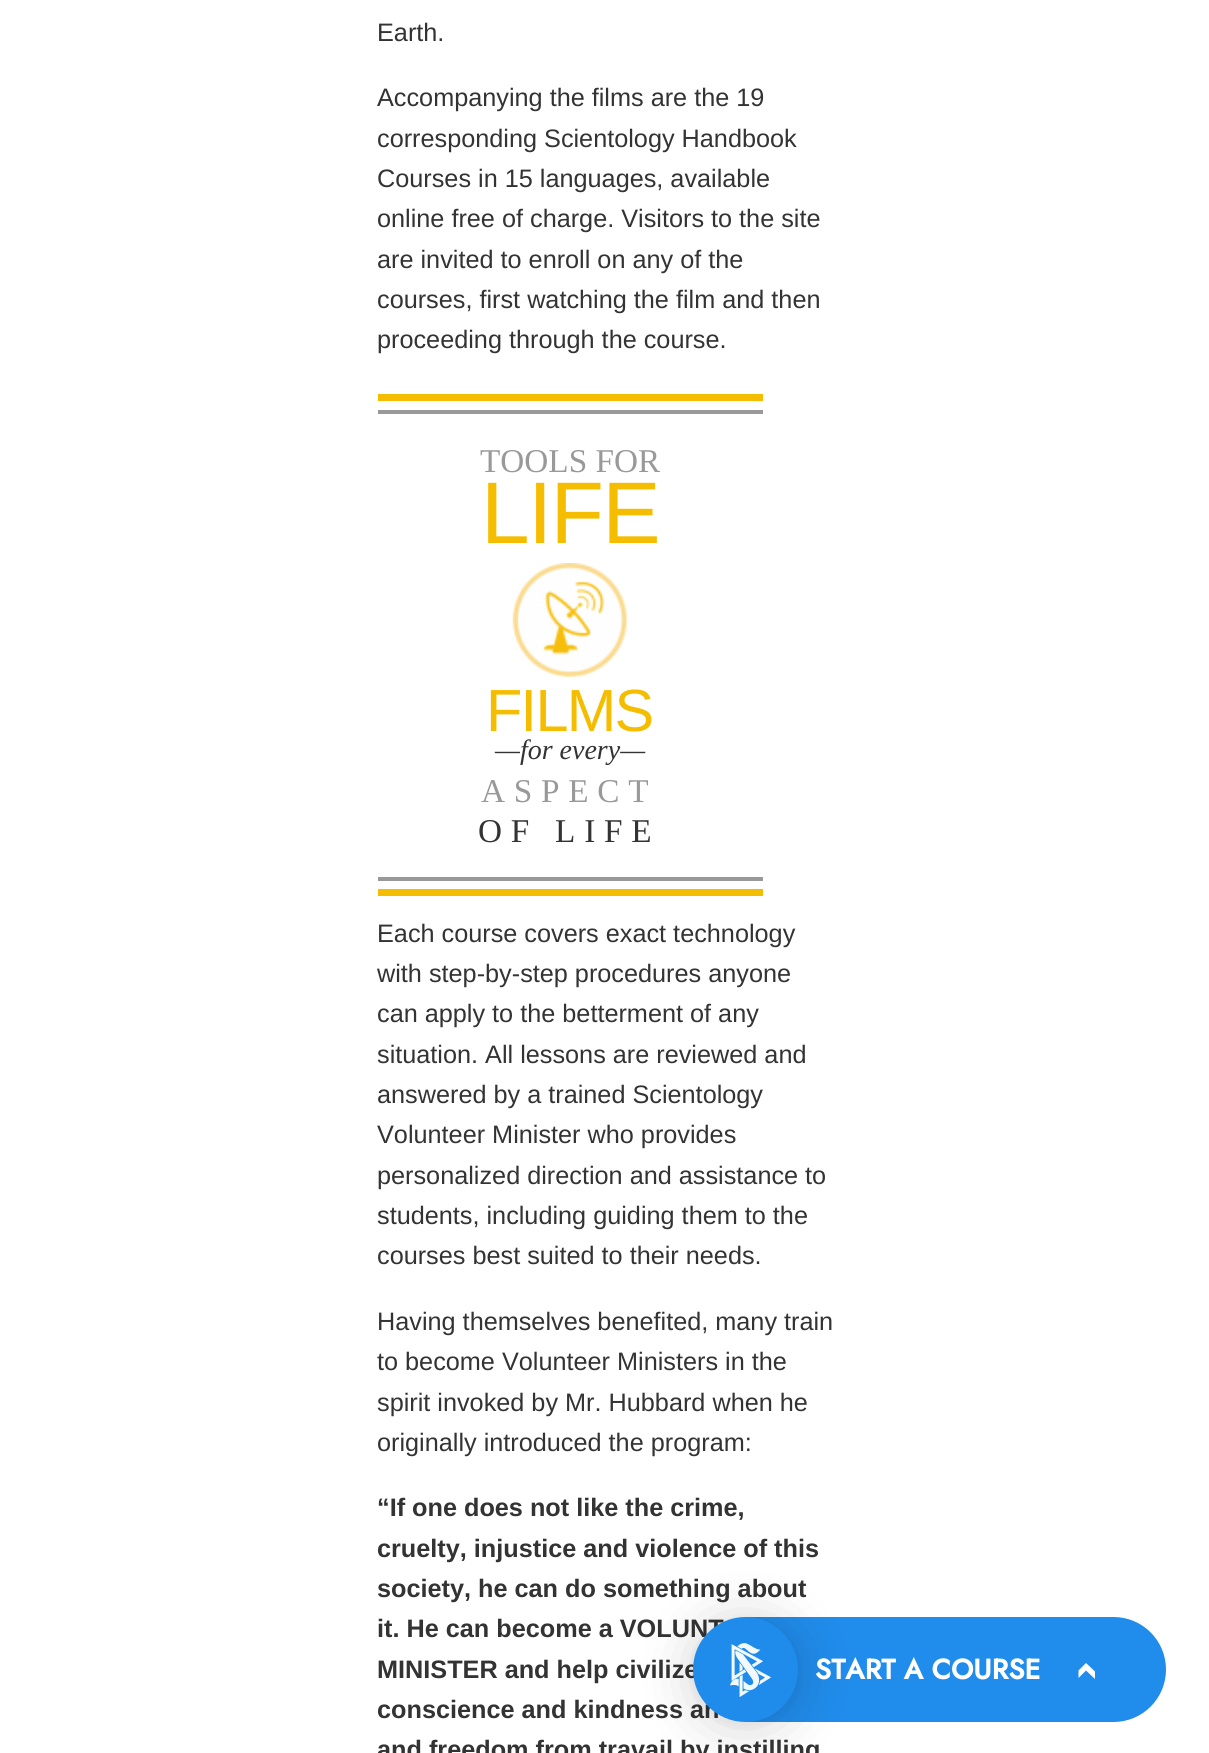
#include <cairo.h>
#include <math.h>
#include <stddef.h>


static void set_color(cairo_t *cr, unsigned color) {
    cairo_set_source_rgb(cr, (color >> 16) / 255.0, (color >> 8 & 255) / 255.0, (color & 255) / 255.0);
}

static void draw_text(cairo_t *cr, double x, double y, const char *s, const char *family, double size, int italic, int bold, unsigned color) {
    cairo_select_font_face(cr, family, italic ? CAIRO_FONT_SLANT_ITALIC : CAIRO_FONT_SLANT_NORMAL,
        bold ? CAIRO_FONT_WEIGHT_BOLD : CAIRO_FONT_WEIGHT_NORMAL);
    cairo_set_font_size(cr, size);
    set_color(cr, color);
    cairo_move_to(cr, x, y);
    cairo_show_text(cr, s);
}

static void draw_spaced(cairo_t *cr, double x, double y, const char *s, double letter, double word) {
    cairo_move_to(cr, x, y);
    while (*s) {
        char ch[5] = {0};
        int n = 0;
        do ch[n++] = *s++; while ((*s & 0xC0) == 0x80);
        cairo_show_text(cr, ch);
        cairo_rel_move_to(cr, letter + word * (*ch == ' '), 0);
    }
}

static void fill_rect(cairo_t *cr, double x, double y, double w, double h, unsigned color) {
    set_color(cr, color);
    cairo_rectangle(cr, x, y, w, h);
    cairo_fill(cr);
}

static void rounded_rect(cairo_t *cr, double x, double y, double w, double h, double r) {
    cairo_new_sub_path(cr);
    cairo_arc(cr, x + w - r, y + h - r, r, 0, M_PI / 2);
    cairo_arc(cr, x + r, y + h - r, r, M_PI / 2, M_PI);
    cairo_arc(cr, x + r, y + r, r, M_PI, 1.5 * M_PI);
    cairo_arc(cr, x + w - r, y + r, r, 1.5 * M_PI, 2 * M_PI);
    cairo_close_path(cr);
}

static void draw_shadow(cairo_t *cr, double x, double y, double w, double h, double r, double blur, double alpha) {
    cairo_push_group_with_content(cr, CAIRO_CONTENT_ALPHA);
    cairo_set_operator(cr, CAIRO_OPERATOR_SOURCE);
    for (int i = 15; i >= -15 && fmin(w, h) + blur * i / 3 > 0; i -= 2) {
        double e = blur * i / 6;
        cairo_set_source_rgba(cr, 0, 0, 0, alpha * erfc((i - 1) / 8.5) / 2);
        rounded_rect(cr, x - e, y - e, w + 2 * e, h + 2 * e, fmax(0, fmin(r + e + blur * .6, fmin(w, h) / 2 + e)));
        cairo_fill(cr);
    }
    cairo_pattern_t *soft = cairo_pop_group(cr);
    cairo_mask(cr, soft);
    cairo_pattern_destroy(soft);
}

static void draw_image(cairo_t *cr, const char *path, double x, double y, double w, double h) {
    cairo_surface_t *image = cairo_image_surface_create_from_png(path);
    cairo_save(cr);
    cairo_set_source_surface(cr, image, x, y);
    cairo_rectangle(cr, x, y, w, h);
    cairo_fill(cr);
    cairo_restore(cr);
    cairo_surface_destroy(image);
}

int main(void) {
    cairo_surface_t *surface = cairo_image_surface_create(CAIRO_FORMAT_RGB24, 1209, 1753);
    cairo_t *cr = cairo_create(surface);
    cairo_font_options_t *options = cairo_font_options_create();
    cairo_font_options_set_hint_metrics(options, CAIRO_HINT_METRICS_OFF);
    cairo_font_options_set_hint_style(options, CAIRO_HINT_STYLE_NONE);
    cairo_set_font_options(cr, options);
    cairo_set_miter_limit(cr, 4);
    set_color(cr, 0xFFFFFF);
    cairo_paint(cr);
    draw_text(cr, 377, 41, "Earth.", "Liberation Sans", 25.25, 0, 0, 0x333333);
    draw_text(cr, 377, 106, "Accompanying the films are the 19", "Liberation Sans", 25.25, 0, 0, 0x333333);
    draw_text(cr, 377, 147, "corresponding Scientology Handbook", "Liberation Sans", 25.25, 0, 0, 0x333333);
    draw_text(cr, 377, 187, "Courses in 15 languages, available", "Liberation Sans", 25.25, 0, 0, 0x333333);
    draw_text(cr, 377, 227, "online free of charge. Visitors to the site", "Liberation Sans", 25.25, 0, 0, 0x333333);
    draw_text(cr, 377, 268, "are invited to enroll on any of the", "Liberation Sans", 25.25, 0, 0, 0x333333);
    draw_text(cr, 377, 308, "courses, first watching the film and then", "Liberation Sans", 25.25, 0, 0, 0x333333);
    draw_text(cr, 377, 348, "proceeding through the course.", "Liberation Sans", 25.25, 0, 0, 0x333333);
    fill_rect(cr, 378, 394, 385, 7, 0xF5BD00);
    fill_rect(cr, 378, 889, 385, 7, 0xF5BD00);
    fill_rect(cr, 378, 410, 385, 4, 0x999999);
    fill_rect(cr, 378, 877, 385, 4, 0x999999);
    draw_text(cr, 480, 472, "TOOLS FOR", "Liberation Serif", 33.25, 0, 0, 0x999999);
    cairo_select_font_face(cr, "Liberation Sans", CAIRO_FONT_SLANT_NORMAL, CAIRO_FONT_WEIGHT_NORMAL);
    cairo_set_font_size(cr, 87.5);
    set_color(cr, 0xF5BD00);
    draw_spaced(cr, 481, 543, "LIFE", -1.75, 0);
    draw_image(cr, "assets/img1.png", 512, 563, 115, 114);
    cairo_set_font_size(cr, 59.5);
    draw_spaced(cr, 486, 731, "FILMS", -1.75, 0);
    draw_text(cr, 495, 759, "—for every—", "Liberation Serif", 28, 1, 0, 0x333333);
    cairo_select_font_face(cr, "Liberation Serif", CAIRO_FONT_SLANT_NORMAL, CAIRO_FONT_WEIGHT_NORMAL);
    cairo_set_font_size(cr, 33.25);
    set_color(cr, 0x999999);
    draw_spaced(cr, 481, 802, "ASPECT", 8.75, 0);
    set_color(cr, 0x333333);
    draw_spaced(cr, 478, 842, "OF LIFE", 8.75, 0);
    draw_text(cr, 377, 942, "Each course covers exact technology", "Liberation Sans", 25.25, 0, 0, 0x333333);
    draw_text(cr, 377, 982, "with step-by-step procedures anyone", "Liberation Sans", 25.25, 0, 0, 0x333333);
    draw_text(cr, 377, 1022, "can apply to the betterment of any", "Liberation Sans", 25.25, 0, 0, 0x333333);
    draw_text(cr, 377, 1063, "situation. All lessons are reviewed and", "Liberation Sans", 25.25, 0, 0, 0x333333);
    draw_text(cr, 377, 1103, "answered by a trained Scientology", "Liberation Sans", 25.25, 0, 0, 0x333333);
    draw_text(cr, 377, 1143, "Volunteer Minister who provides", "Liberation Sans", 25.25, 0, 0, 0x333333);
    draw_text(cr, 377, 1184, "personalized direction and assistance to", "Liberation Sans", 25.25, 0, 0, 0x333333);
    draw_text(cr, 377, 1224, "students, including guiding them to the", "Liberation Sans", 25.25, 0, 0, 0x333333);
    draw_text(cr, 377, 1264, "courses best suited to their needs.", "Liberation Sans", 25.25, 0, 0, 0x333333);
    draw_text(cr, 377, 1330, "Having themselves benefited, many train", "Liberation Sans", 25.25, 0, 0, 0x333333);
    draw_text(cr, 377, 1370, "to become Volunteer Ministers in the", "Liberation Sans", 25.25, 0, 0, 0x333333);
    draw_text(cr, 377, 1411, "spirit invoked by Mr. Hubbard when he", "Liberation Sans", 25.25, 0, 0, 0x333333);
    draw_text(cr, 377, 1451, "originally introduced the program:", "Liberation Sans", 25.25, 0, 0, 0x333333);
    draw_text(cr, 377, 1516, "“If one does not like the crime,", "Liberation Sans", 25.25, 0, 1, 0x333333);
    draw_text(cr, 377, 1557, "cruelty, injustice and violence of this", "Liberation Sans", 25.25, 0, 1, 0x333333);
    draw_text(cr, 377, 1597, "society, he can do something about", "Liberation Sans", 25.25, 0, 1, 0x333333);
    draw_text(cr, 377, 1637, "it. He can become a VOLUNT", "Liberation Sans", 25.25, 0, 1, 0x333333);
    draw_text(cr, 377, 1678, "MINISTER and help civilize", "Liberation Sans", 25.25, 0, 1, 0x333333);
    draw_text(cr, 377, 1718, "conscience and kindness an", "Liberation Sans", 25.25, 0, 1, 0x333333);
    draw_text(cr, 377, 1758, "and freedom from travail by instilling", "Liberation Sans", 25.25, 0, 1, 0x333333);
    set_color(cr, 0x208CEB);
    cairo_new_path(cr);
    cairo_move_to(cr, 746, 1617);
    cairo_line_to(cr, 1113.5, 1617);
    cairo_curve_to(cr, 1142.5, 1617, 1166, 1640.5, 1166, 1669.5);
    cairo_curve_to(cr, 1166, 1698.5, 1142.5, 1722, 1113.5, 1722);
    cairo_line_to(cr, 746, 1722);
    cairo_close_path(cr);
    cairo_fill(cr);
    set_color(cr, 0x000000);
    draw_shadow(cr, 693, 1621, 105, 105, 52.5, 28, 0.16);
    draw_shadow(cr, 693, 1619, 105, 105, 52.5, 5, 0.06);
    set_color(cr, 0x1F8CEB);
    cairo_arc(cr, 745.5, 1669.5, 52.5, 0, 2 * M_PI);
    cairo_fill(cr);
    draw_image(cr, "assets/img2.png", 730, 1643, 41, 54);
    draw_text(cr, 815, 1679, "START A COURSE", "Jost", 28, 0, 1, 0xFFFFFF);
    cairo_new_path(cr);
    cairo_move_to(cr, 1078.5, 1670.5);
    cairo_line_to(cr, 1086, 1663);
    cairo_line_to(cr, 1095, 1671.5);
    cairo_line_to(cr, 1095, 1679);
    cairo_line_to(cr, 1086, 1670.5);
    cairo_line_to(cr, 1078.5, 1678);
    cairo_close_path(cr);
    cairo_fill(cr);
    cairo_surface_write_to_png(surface, "output.png");
    cairo_font_options_destroy(options);
    cairo_destroy(cr);
    cairo_surface_destroy(surface);
    return 0;
}
